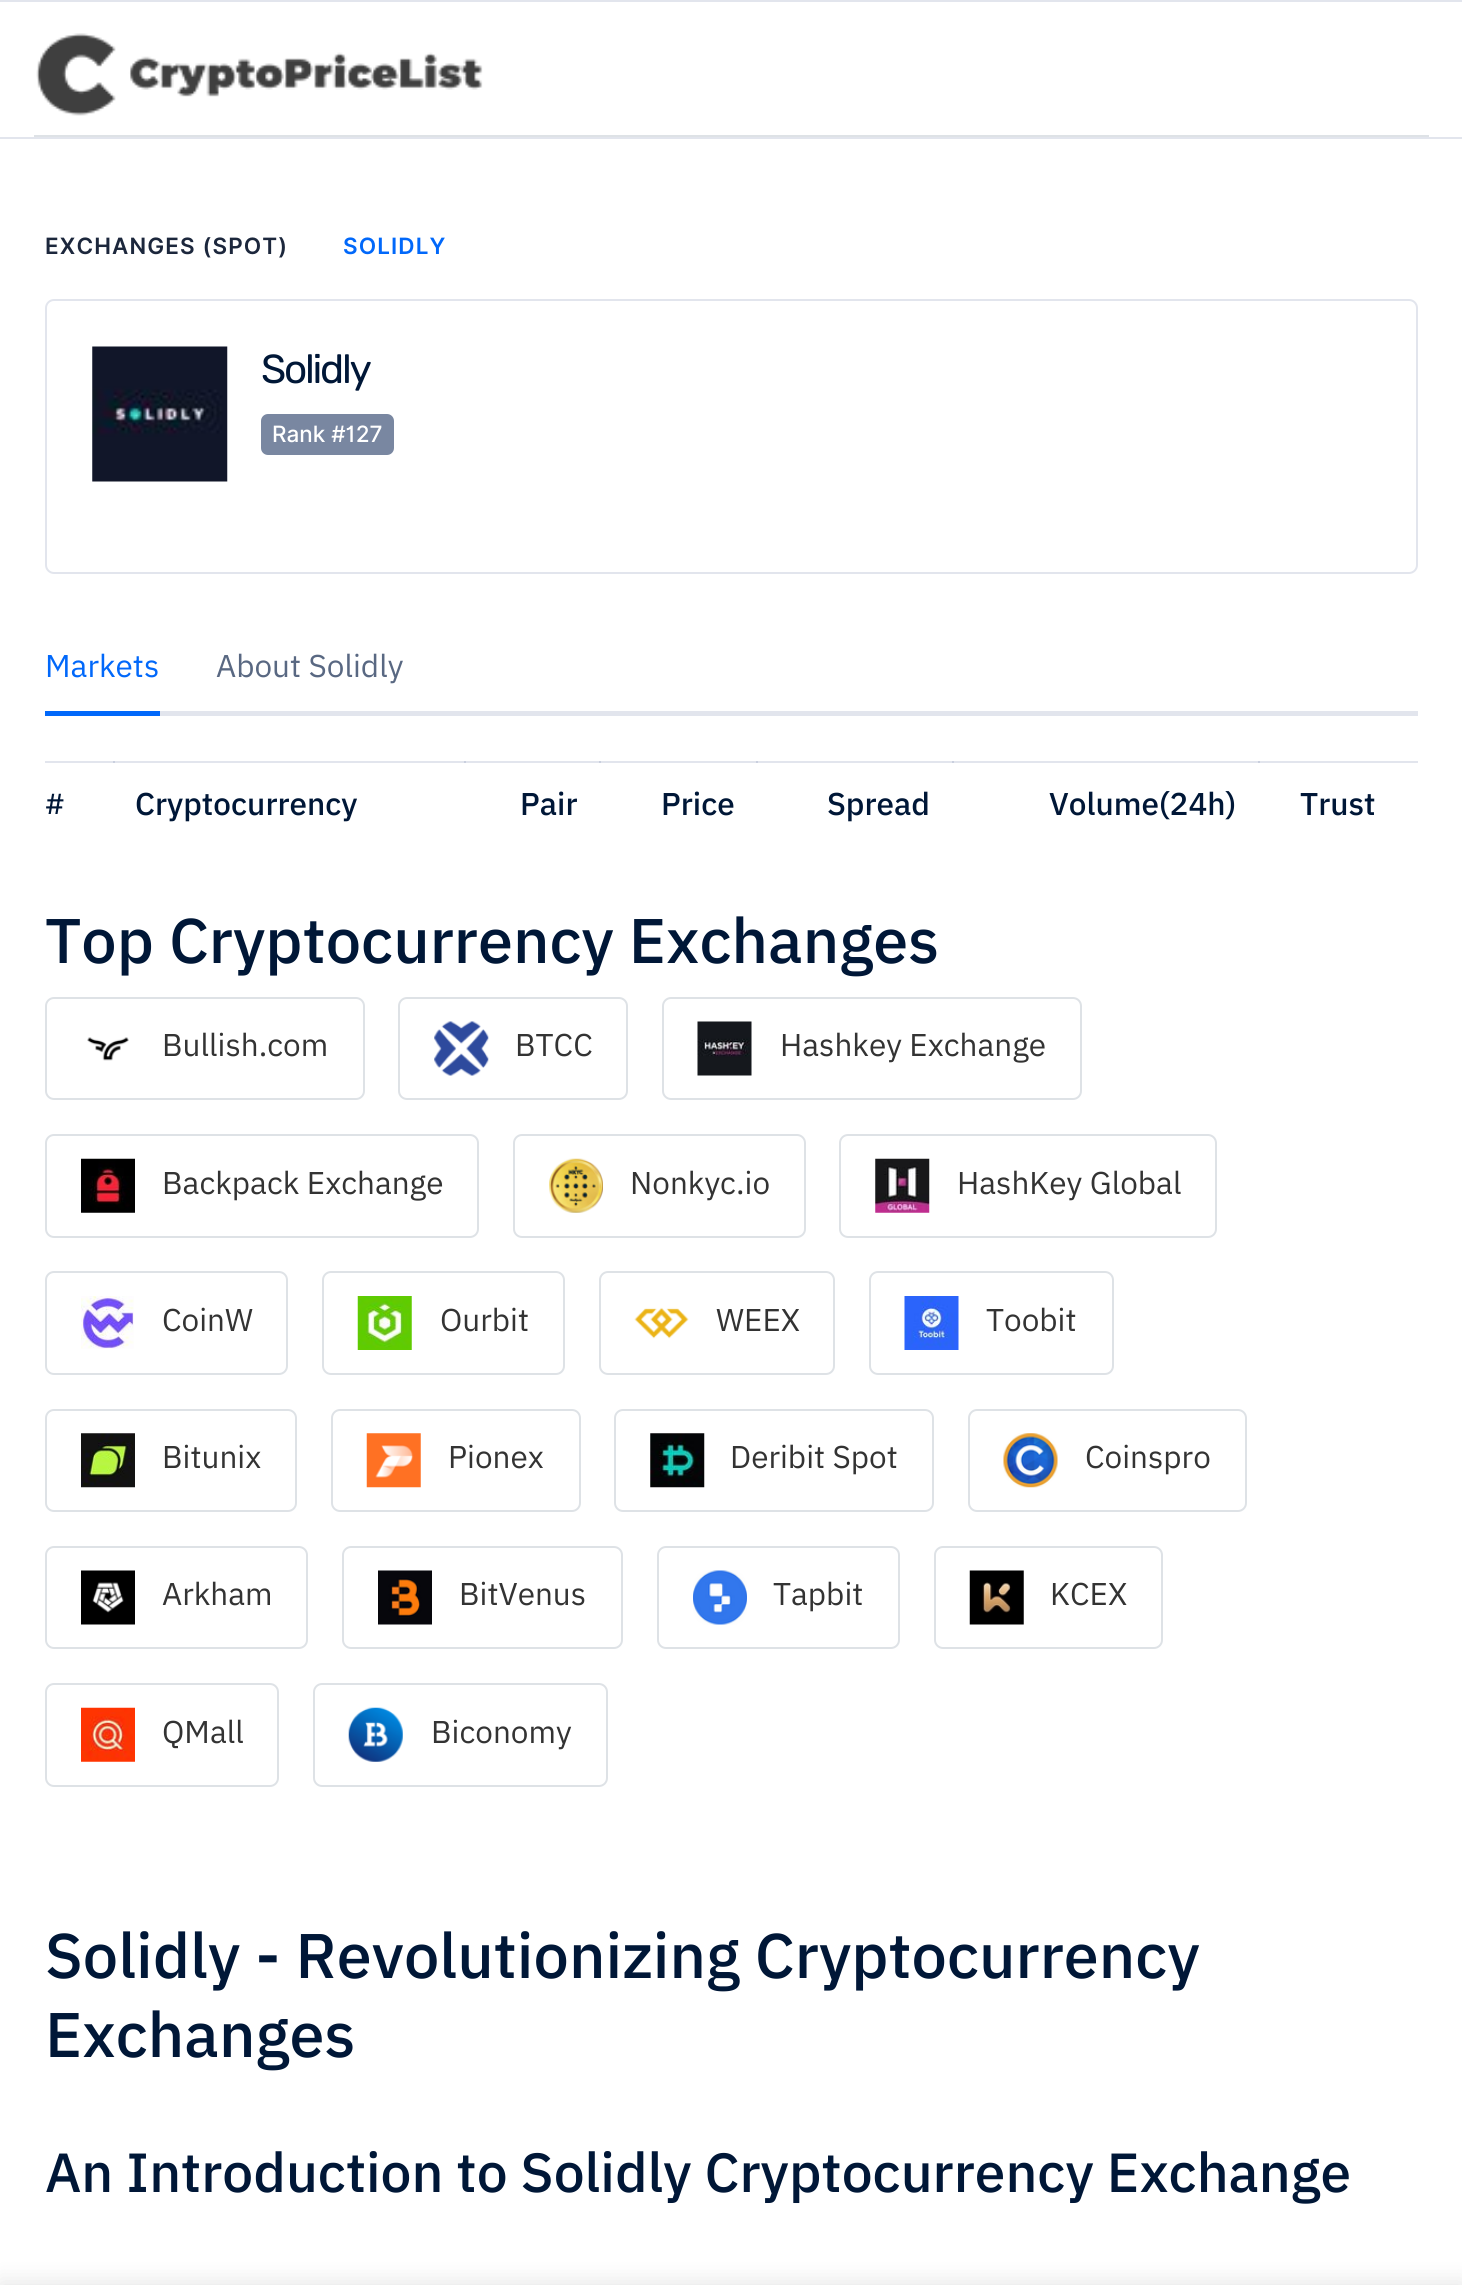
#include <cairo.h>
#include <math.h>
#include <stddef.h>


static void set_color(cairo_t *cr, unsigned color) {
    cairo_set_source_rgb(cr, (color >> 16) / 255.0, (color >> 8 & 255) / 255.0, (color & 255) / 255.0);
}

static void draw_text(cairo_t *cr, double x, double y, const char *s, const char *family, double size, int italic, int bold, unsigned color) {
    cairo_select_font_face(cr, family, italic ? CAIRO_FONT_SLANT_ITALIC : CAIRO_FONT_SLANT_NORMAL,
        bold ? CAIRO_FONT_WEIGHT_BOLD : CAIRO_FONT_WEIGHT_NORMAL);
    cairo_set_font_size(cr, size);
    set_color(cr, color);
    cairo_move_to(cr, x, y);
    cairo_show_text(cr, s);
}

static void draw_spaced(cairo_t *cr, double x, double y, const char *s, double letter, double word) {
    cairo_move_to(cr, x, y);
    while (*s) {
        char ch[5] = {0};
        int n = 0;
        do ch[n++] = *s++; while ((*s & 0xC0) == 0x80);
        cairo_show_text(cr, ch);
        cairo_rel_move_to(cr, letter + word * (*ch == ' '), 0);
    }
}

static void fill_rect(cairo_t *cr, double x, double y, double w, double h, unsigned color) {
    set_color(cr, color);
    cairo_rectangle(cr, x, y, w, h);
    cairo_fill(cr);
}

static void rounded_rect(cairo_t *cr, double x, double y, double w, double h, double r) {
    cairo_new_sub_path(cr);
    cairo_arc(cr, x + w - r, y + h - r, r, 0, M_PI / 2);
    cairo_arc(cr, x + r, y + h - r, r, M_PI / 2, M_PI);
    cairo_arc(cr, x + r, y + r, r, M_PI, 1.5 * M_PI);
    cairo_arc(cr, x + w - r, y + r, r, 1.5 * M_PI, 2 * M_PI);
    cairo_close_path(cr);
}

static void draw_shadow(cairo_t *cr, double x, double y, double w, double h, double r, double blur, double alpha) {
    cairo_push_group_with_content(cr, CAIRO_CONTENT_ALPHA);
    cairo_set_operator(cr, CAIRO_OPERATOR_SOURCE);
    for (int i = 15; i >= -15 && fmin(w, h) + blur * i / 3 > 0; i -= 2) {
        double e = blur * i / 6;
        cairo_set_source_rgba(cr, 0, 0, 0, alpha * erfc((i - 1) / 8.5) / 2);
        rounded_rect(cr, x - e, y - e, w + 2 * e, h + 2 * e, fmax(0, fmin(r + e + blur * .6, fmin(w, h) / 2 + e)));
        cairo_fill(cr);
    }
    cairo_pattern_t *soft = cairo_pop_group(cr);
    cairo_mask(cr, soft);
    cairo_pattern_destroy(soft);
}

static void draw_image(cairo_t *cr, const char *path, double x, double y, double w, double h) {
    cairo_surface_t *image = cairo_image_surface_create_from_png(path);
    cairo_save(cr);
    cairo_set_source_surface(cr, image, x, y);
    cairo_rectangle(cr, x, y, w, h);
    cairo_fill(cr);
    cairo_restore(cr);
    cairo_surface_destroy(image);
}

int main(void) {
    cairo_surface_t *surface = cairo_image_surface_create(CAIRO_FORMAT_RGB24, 1462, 2285);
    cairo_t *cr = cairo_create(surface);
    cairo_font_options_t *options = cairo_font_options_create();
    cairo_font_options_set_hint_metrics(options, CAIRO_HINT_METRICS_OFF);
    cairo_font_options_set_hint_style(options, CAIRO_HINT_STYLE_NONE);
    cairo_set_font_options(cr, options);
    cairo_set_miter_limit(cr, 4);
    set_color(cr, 0xFFFFFF);
    cairo_paint(cr);
    fill_rect(cr, 45, 761, 1373, 2, 0xE2E5ED);
    fill_rect(cr, 113, 761, 2, 2, 0xC9CFDE);
    fill_rect(cr, 464, 761, 2, 2, 0xC9CFDE);
    fill_rect(cr, 599, 761, 2, 2, 0xC9CFDE);
    fill_rect(cr, 756, 761, 2, 2, 0xC9CFDE);
    fill_rect(cr, 952, 761, 2, 2, 0xC9CFDE);
    fill_rect(cr, 0, 0, 1462, 2, 0xE2E5ED);
    fill_rect(cr, 0, 137, 1462, 2, 0xE2E5ED);
    fill_rect(cr, 34, 135, 1395, 2, 0xDEE2E6);
    draw_image(cr, "assets/img1.png", 36, 33, 447, 83);
    cairo_select_font_face(cr, "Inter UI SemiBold", CAIRO_FONT_SLANT_NORMAL, CAIRO_FONT_WEIGHT_NORMAL);
    cairo_set_font_size(cr, 22.5);
    set_color(cr, 0x1C273C);
    draw_spaced(cr, 45, 254, "EXCHANGES (SPOT)", 1.1, 0);
    set_color(cr, 0x0168FA);
    draw_spaced(cr, 343, 254, "SOLIDLY", 1.1, 0);
    rounded_rect(cr, 46, 300, 1371, 273, 8);
    set_color(cr, 0xE2E5ED);
    cairo_stroke(cr);
    draw_image(cr, "assets/img2.png", 92, 346, 136, 136);
    cairo_select_font_face(cr, "Rubik", CAIRO_FONT_SLANT_NORMAL, CAIRO_FONT_WEIGHT_NORMAL);
    cairo_set_font_size(cr, 40.5);
    set_color(cr, 0x001737);
    draw_spaced(cr, 261, 383, "Solidly", -2.25, 0);
    set_color(cr, 0x7987A1);
    rounded_rect(cr, 261, 414, 133, 41, 7);
    cairo_fill(cr);
    draw_text(cr, 272, 442, "Rank #127", "Inter UI Medium", 22.5, 0, 0, 0xFFFFFF);
    fill_rect(cr, 160, 711, 1258, 5, 0xE2E5ED);
    draw_text(cr, 45, 677, "Markets", "IBM Plex Sans", 31.5, 0, 0, 0x0168FA);
    fill_rect(cr, 45, 711, 115, 5, 0x0168FA);
    draw_text(cr, 216, 677, "About Solidly", "IBM Plex Sans", 31.5, 0, 0, 0x596882);
    draw_text(cr, 45, 814, "#", "IBM Plex Sans Medium", 29, 0, 0, 0x001737);
    draw_text(cr, 135, 815, "Cryptocurrency", "IBM Plex Sans Medium", 31.5, 0, 0, 0x001737);
    draw_text(cr, 520, 815, "Pair", "IBM Plex Sans Medium", 31.5, 0, 0, 0x001737);
    draw_text(cr, 661, 815, "Price", "IBM Plex Sans Medium", 31.5, 0, 0, 0x001737);
    draw_text(cr, 827, 815, "Spread", "IBM Plex Sans Medium", 31.5, 0, 0, 0x001737);
    draw_text(cr, 1049, 815, "Volume(24h)", "IBM Plex Sans Medium", 31.5, 0, 0, 0x001737);
    fill_rect(cr, 1258, 761, 2, 2, 0xC9CFDE);
    draw_text(cr, 1300, 815, "Trust", "IBM Plex Sans Medium", 31.5, 0, 0, 0x001737);
    draw_text(cr, 45, 963, "Top Cryptocurrency Exchanges", "IBM Plex Sans Medium", 63, 0, 0, 0x001737);
    rounded_rect(cr, 46, 998, 318, 101, 8);
    set_color(cr, 0xDEE2E6);
    cairo_stroke(cr);
    draw_image(cr, "assets/img3.png", 87, 1037, 42, 24);
    draw_text(cr, 162, 1056, "Bullish.com", "IBM Plex Sans", 31.5, 0, 0, 0x333333);
    rounded_rect(cr, 399, 998, 228, 101, 8);
    set_color(cr, 0xDEE2E6);
    cairo_stroke(cr);
    draw_image(cr, "assets/img4.png", 434, 1021, 55, 55);
    draw_text(cr, 515, 1056, "BTCC", "IBM Plex Sans", 31.5, 0, 0, 0x333333);
    rounded_rect(cr, 663, 998, 418, 101, 8);
    set_color(cr, 0xDEE2E6);
    cairo_stroke(cr);
    draw_image(cr, "assets/img5.png", 697, 1021, 55, 55);
    draw_text(cr, 780, 1056, "Hashkey Exchange", "IBM Plex Sans", 31.5, 0, 0, 0x333333);
    rounded_rect(cr, 46, 1135, 432, 102, 8);
    set_color(cr, 0xDEE2E6);
    cairo_stroke(cr);
    draw_image(cr, "assets/img6.png", 81, 1158, 54, 55);
    draw_text(cr, 162, 1194, "Backpack Exchange", "IBM Plex Sans", 31.5, 0, 0, 0x333333);
    rounded_rect(cr, 514, 1135, 291, 102, 8);
    set_color(cr, 0xDEE2E6);
    cairo_stroke(cr);
    draw_image(cr, "assets/img7.png", 549, 1158, 54, 55);
    draw_text(cr, 630, 1194, "Nonkyc.io", "IBM Plex Sans", 31.5, 0, 0, 0x333333);
    rounded_rect(cr, 840, 1135, 376, 102, 8);
    set_color(cr, 0xDEE2E6);
    cairo_stroke(cr);
    draw_image(cr, "assets/img8.png", 875, 1158, 55, 55);
    draw_text(cr, 957, 1194, "HashKey Global", "IBM Plex Sans", 31.5, 0, 0, 0x333333);
    rounded_rect(cr, 46, 1272, 241, 102, 8);
    set_color(cr, 0xDEE2E6);
    cairo_stroke(cr);
    draw_image(cr, "assets/img9.png", 81, 1296, 53, 53);
    draw_text(cr, 162, 1331, "CoinW", "IBM Plex Sans", 31.5, 0, 0, 0x333333);
    rounded_rect(cr, 323, 1272, 241, 102, 8);
    set_color(cr, 0xDEE2E6);
    cairo_stroke(cr);
    draw_image(cr, "assets/img10.png", 357, 1296, 55, 54);
    draw_text(cr, 440, 1331, "Ourbit", "IBM Plex Sans", 31.5, 0, 0, 0x333333);
    rounded_rect(cr, 600, 1272, 234, 102, 8);
    set_color(cr, 0xDEE2E6);
    cairo_stroke(cr);
    draw_image(cr, "assets/img11.png", 634, 1307, 55, 32);
    draw_text(cr, 716, 1331, "WEEX", "IBM Plex Sans", 31.5, 0, 0, 0x333333);
    rounded_rect(cr, 870, 1272, 243, 102, 8);
    set_color(cr, 0xDEE2E6);
    cairo_stroke(cr);
    draw_image(cr, "assets/img12.png", 904, 1296, 55, 54);
    draw_text(cr, 986, 1331, "Toobit", "IBM Plex Sans", 31.5, 0, 0, 0x333333);
    rounded_rect(cr, 46, 1410, 250, 101, 8);
    set_color(cr, 0xDEE2E6);
    cairo_stroke(cr);
    draw_image(cr, "assets/img13.png", 81, 1433, 54, 55);
    draw_text(cr, 162, 1468, "Bitunix", "IBM Plex Sans", 31.5, 0, 0, 0x333333);
    rounded_rect(cr, 332, 1410, 248, 101, 8);
    set_color(cr, 0xDEE2E6);
    cairo_stroke(cr);
    draw_image(cr, "assets/img14.png", 366, 1433, 55, 55);
    draw_text(cr, 448, 1468, "Pionex", "IBM Plex Sans", 31.5, 0, 0, 0x333333);
    rounded_rect(cr, 615, 1410, 318, 101, 8);
    set_color(cr, 0xDEE2E6);
    cairo_stroke(cr);
    draw_image(cr, "assets/img15.png", 650, 1433, 55, 55);
    draw_text(cr, 730, 1468, "Deribit Spot", "IBM Plex Sans", 31.5, 0, 0, 0x333333);
    rounded_rect(cr, 969, 1410, 277, 101, 8);
    set_color(cr, 0xDEE2E6);
    cairo_stroke(cr);
    draw_image(cr, "assets/img16.png", 1003, 1433, 55, 55);
    draw_text(cr, 1085, 1468, "Coinspro", "IBM Plex Sans", 31.5, 0, 0, 0x333333);
    rounded_rect(cr, 46, 1547, 261, 101, 8);
    set_color(cr, 0xDEE2E6);
    cairo_stroke(cr);
    draw_image(cr, "assets/img17.png", 81, 1570, 54, 55);
    draw_text(cr, 162, 1605, "Arkham", "IBM Plex Sans", 31.5, 0, 0, 0x333333);
    rounded_rect(cr, 343, 1547, 279, 101, 8);
    set_color(cr, 0xDEE2E6);
    cairo_stroke(cr);
    draw_image(cr, "assets/img18.png", 378, 1570, 54, 55);
    draw_text(cr, 459, 1605, "BitVenus", "IBM Plex Sans", 31.5, 0, 0, 0x333333);
    rounded_rect(cr, 658, 1547, 241, 101, 8);
    set_color(cr, 0xDEE2E6);
    cairo_stroke(cr);
    draw_image(cr, "assets/img19.png", 693, 1570, 54, 55);
    draw_text(cr, 773, 1605, "Tapbit", "IBM Plex Sans", 31.5, 0, 0, 0x333333);
    rounded_rect(cr, 935, 1547, 227, 101, 8);
    set_color(cr, 0xDEE2E6);
    cairo_stroke(cr);
    draw_image(cr, "assets/img20.png", 969, 1570, 55, 55);
    draw_text(cr, 1050, 1605, "KCEX", "IBM Plex Sans", 31.5, 0, 0, 0x333333);
    rounded_rect(cr, 46, 1684, 232, 102, 8);
    set_color(cr, 0xDEE2E6);
    cairo_stroke(cr);
    draw_image(cr, "assets/img21.png", 81, 1707, 54, 55);
    draw_text(cr, 162, 1743, "QMall", "IBM Plex Sans", 31.5, 0, 0, 0x333333);
    rounded_rect(cr, 314, 1684, 293, 102, 8);
    set_color(cr, 0xDEE2E6);
    cairo_stroke(cr);
    draw_image(cr, "assets/img22.png", 348, 1707, 55, 55);
    draw_text(cr, 431, 1743, "Biconomy", "IBM Plex Sans", 31.5, 0, 0, 0x333333);
    draw_text(cr, 45, 1978, "Solidly - Revolutionizing Cryptocurrency", "IBM Plex Sans Medium", 63, 0, 0, 0x001737);
    draw_text(cr, 45, 2057, "Exchanges", "IBM Plex Sans Medium", 63, 0, 0, 0x001737);
    draw_text(cr, 45, 2192, "An Introduction to Solidly Cryptocurrency Exchange", "IBM Plex Sans Medium", 55.1, 0, 0, 0x001737);
    set_color(cr, 0x000000);
    draw_shadow(cr, 0, 2282, 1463, 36, 0, 11, 0.1);
    cairo_surface_write_to_png(surface, "output.png");
    cairo_font_options_destroy(options);
    cairo_destroy(cr);
    cairo_surface_destroy(surface);
    return 0;
}
